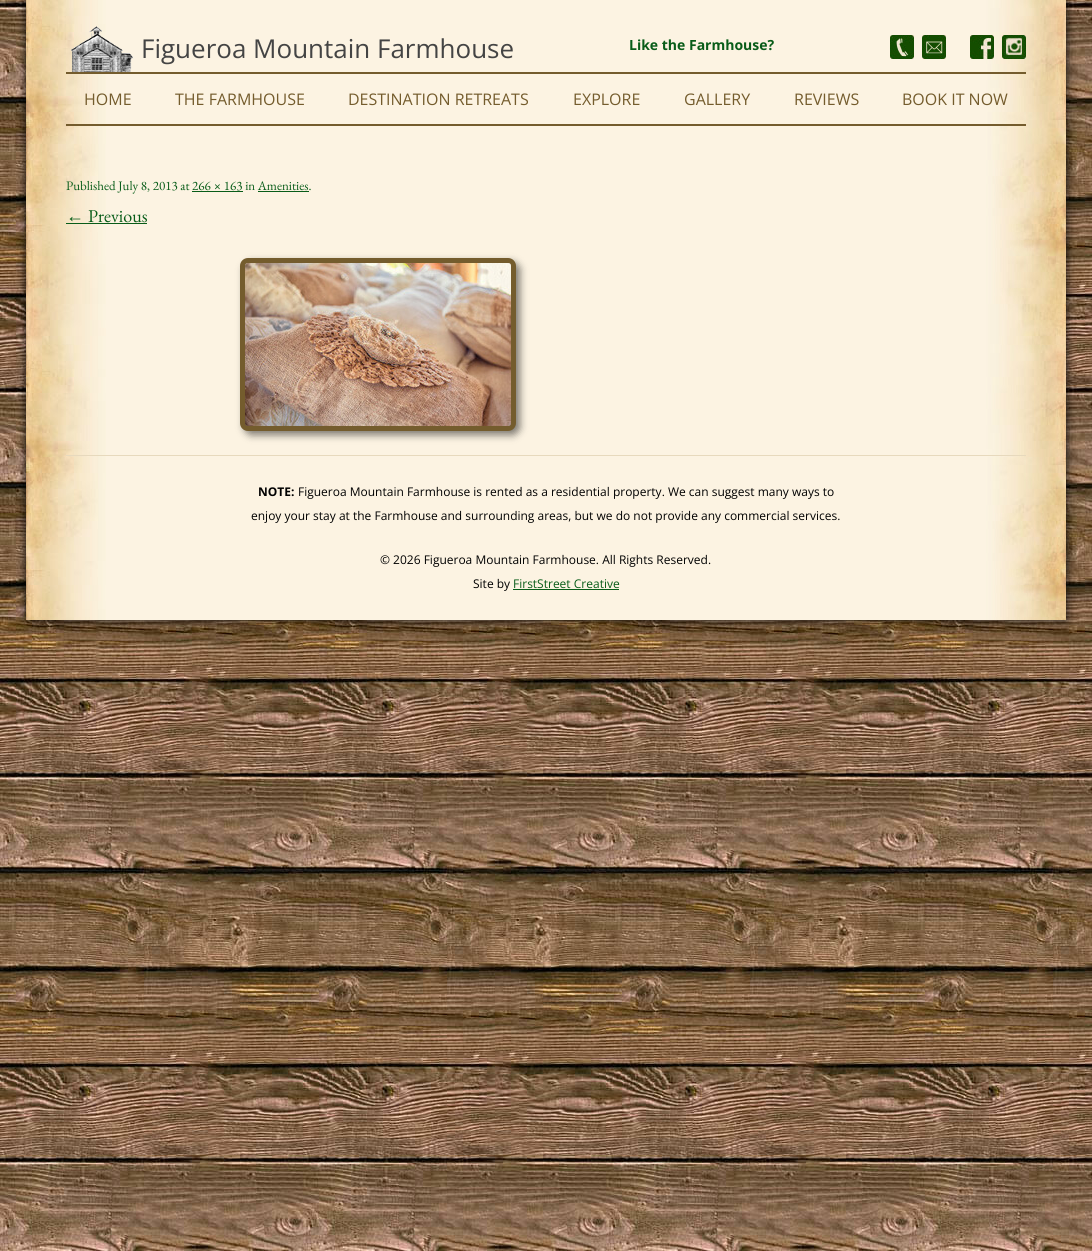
#include <cairo.h>
#include <math.h>
#include <stddef.h>


static void set_color(cairo_t *cr, unsigned color) {
    cairo_set_source_rgb(cr, (color >> 16) / 255.0, (color >> 8 & 255) / 255.0, (color & 255) / 255.0);
}

static void draw_text(cairo_t *cr, double x, double y, const char *s, const char *family, double size, int italic, int bold, unsigned color) {
    cairo_select_font_face(cr, family, italic ? CAIRO_FONT_SLANT_ITALIC : CAIRO_FONT_SLANT_NORMAL,
        bold ? CAIRO_FONT_WEIGHT_BOLD : CAIRO_FONT_WEIGHT_NORMAL);
    cairo_set_font_size(cr, size);
    set_color(cr, color);
    cairo_move_to(cr, x, y);
    cairo_show_text(cr, s);
}

static void fill_rect(cairo_t *cr, double x, double y, double w, double h, unsigned color) {
    set_color(cr, color);
    cairo_rectangle(cr, x, y, w, h);
    cairo_fill(cr);
}

static void rounded_rect(cairo_t *cr, double x, double y, double w, double h, double r) {
    cairo_new_sub_path(cr);
    cairo_arc(cr, x + w - r, y + h - r, r, 0, M_PI / 2);
    cairo_arc(cr, x + r, y + h - r, r, M_PI / 2, M_PI);
    cairo_arc(cr, x + r, y + r, r, M_PI, 1.5 * M_PI);
    cairo_arc(cr, x + w - r, y + r, r, 1.5 * M_PI, 2 * M_PI);
    cairo_close_path(cr);
}

static void draw_shadow(cairo_t *cr, double x, double y, double w, double h, double r, double blur, double alpha) {
    cairo_push_group_with_content(cr, CAIRO_CONTENT_ALPHA);
    cairo_set_operator(cr, CAIRO_OPERATOR_SOURCE);
    for (int i = 15; i >= -15 && fmin(w, h) + blur * i / 3 > 0; i -= 2) {
        double e = blur * i / 6;
        cairo_set_source_rgba(cr, 0, 0, 0, alpha * erfc((i - 1) / 8.5) / 2);
        rounded_rect(cr, x - e, y - e, w + 2 * e, h + 2 * e, fmax(0, fmin(r + e + blur * .6, fmin(w, h) / 2 + e)));
        cairo_fill(cr);
    }
    cairo_pattern_t *soft = cairo_pop_group(cr);
    cairo_mask(cr, soft);
    cairo_pattern_destroy(soft);
}

static void draw_image(cairo_t *cr, const char *path, double x, double y, double w, double h) {
    cairo_surface_t *image = cairo_image_surface_create_from_png(path);
    cairo_save(cr);
    cairo_set_source_surface(cr, image, x, y);
    cairo_rectangle(cr, x, y, w, h);
    cairo_fill(cr);
    cairo_restore(cr);
    cairo_surface_destroy(image);
}

int main(void) {
    cairo_surface_t *surface = cairo_image_surface_create(CAIRO_FORMAT_RGB24, 1092, 1251);
    cairo_t *cr = cairo_create(surface);
    cairo_font_options_t *options = cairo_font_options_create();
    cairo_font_options_set_hint_metrics(options, CAIRO_HINT_METRICS_OFF);
    cairo_font_options_set_hint_style(options, CAIRO_HINT_STYLE_NONE);
    cairo_set_font_options(cr, options);
    cairo_set_miter_limit(cr, 4);
    set_color(cr, 0xFFFFFF);
    cairo_paint(cr);
    draw_image(cr, "assets/img1.png", 0, 0, 1092, 1251);
    set_color(cr, 0x000000);
    draw_shadow(cr, 26, 0, 1040, 620, 0, 5, 1);
    draw_image(cr, "assets/img2.png", 26, 0, 1040, 620);
    draw_image(cr, "assets/img3.png", 71, 26, 63, 46);
    draw_text(cr, 141, 58, "Figueroa Mountain Farmhouse", "Open Sans", 26, 0, 0, 0x444444);
    draw_text(cr, 629, 50, "Like the Farmhouse?", "Open Sans", 14, 0, 1, 0x085C18);
    draw_image(cr, "assets/img4.png", 890, 35, 24, 24);
    draw_image(cr, "assets/img5.png", 922, 35, 24, 24);
    draw_image(cr, "assets/img6.png", 970, 35, 24, 24);
    draw_image(cr, "assets/img7.png", 1002, 35, 24, 24);
    fill_rect(cr, 66, 72, 960, 2, 0x745C2D);
    fill_rect(cr, 66, 124, 960, 2, 0x745C2D);
    draw_text(cr, 84, 105, "HOME", "Open Sans", 16, 0, 0, 0x745C2D);
    draw_text(cr, 175, 105, "THE FARMHOUSE", "Open Sans", 16, 0, 0, 0x745C2D);
    draw_text(cr, 348, 105, "DESTINATION RETREATS", "Open Sans", 16, 0, 0, 0x745C2D);
    draw_text(cr, 573, 105, "EXPLORE", "Open Sans", 16, 0, 0, 0x745C2D);
    draw_text(cr, 684, 105, "GALLERY", "Open Sans", 16, 0, 0, 0x745C2D);
    draw_text(cr, 794, 105, "REVIEWS", "Open Sans", 16, 0, 0, 0x745C2D);
    draw_text(cr, 902, 105, "BOOK IT NOW", "Open Sans", 16, 0, 0, 0x745C2D);
    draw_text(cr, 66, 190, "Published July 8, 2013 at 266 × 163 in Amenities.", "EB Garamond", 13, 0, 0, 0x085C18);
    fill_rect(cr, 192, 191, 51, 1, 0x085C18);
    fill_rect(cr, 258, 191, 51, 1, 0x085C18);
    draw_text(cr, 66, 222, "←", "Liberation Serif", 18, 0, 0, 0x085C18);
    fill_rect(cr, 66, 223, 81, 1, 0x085C18);
    draw_text(cr, 88, 222, "Previous", "EB Garamond", 18, 0, 0, 0x085C18);
    set_color(cr, 0x000000);
    draw_shadow(cr, 244, 262, 276, 173, 8, 4, 0.5);
    rounded_rect(cr, 242.5, 260.5, 271, 168, 5.5);
    set_color(cr, 0x745C2D);
    cairo_set_line_width(cr, 5);
    cairo_stroke(cr);
    draw_image(cr, "assets/img8.png", 245, 263, 266, 163);
    fill_rect(cr, 66, 455, 960, 1, 0xE7D9BD);
    draw_text(cr, 258, 496, "NOTE:", "Open Sans", 12, 0, 1, 0x000000);
    draw_text(cr, 298, 496, "Figueroa Mountain Farmhouse is rented as a residential property. We can suggest many ways to", "Open Sans", 12, 0, 0, 0x000000);
    draw_text(cr, 251, 520, "enjoy your stay at the Farmhouse and surrounding areas, but we do not provide any commercial services.", "Open Sans", 12, 0, 0, 0x000000);
    draw_text(cr, 380, 564, "© 2026 Figueroa Mountain Farmhouse. All Rights Reserved.", "Open Sans", 12, 0, 0, 0x000000);
    draw_text(cr, 473, 588, "Site by", "Open Sans", 12, 0, 0, 0x000000);
    draw_text(cr, 513, 588, "FirstStreet Creative", "Open Sans", 12, 0, 0, 0x085C18);
    fill_rect(cr, 513, 589, 106, 1, 0x085C18);
    cairo_surface_write_to_png(surface, "output.png");
    cairo_font_options_destroy(options);
    cairo_destroy(cr);
    cairo_surface_destroy(surface);
    return 0;
}
